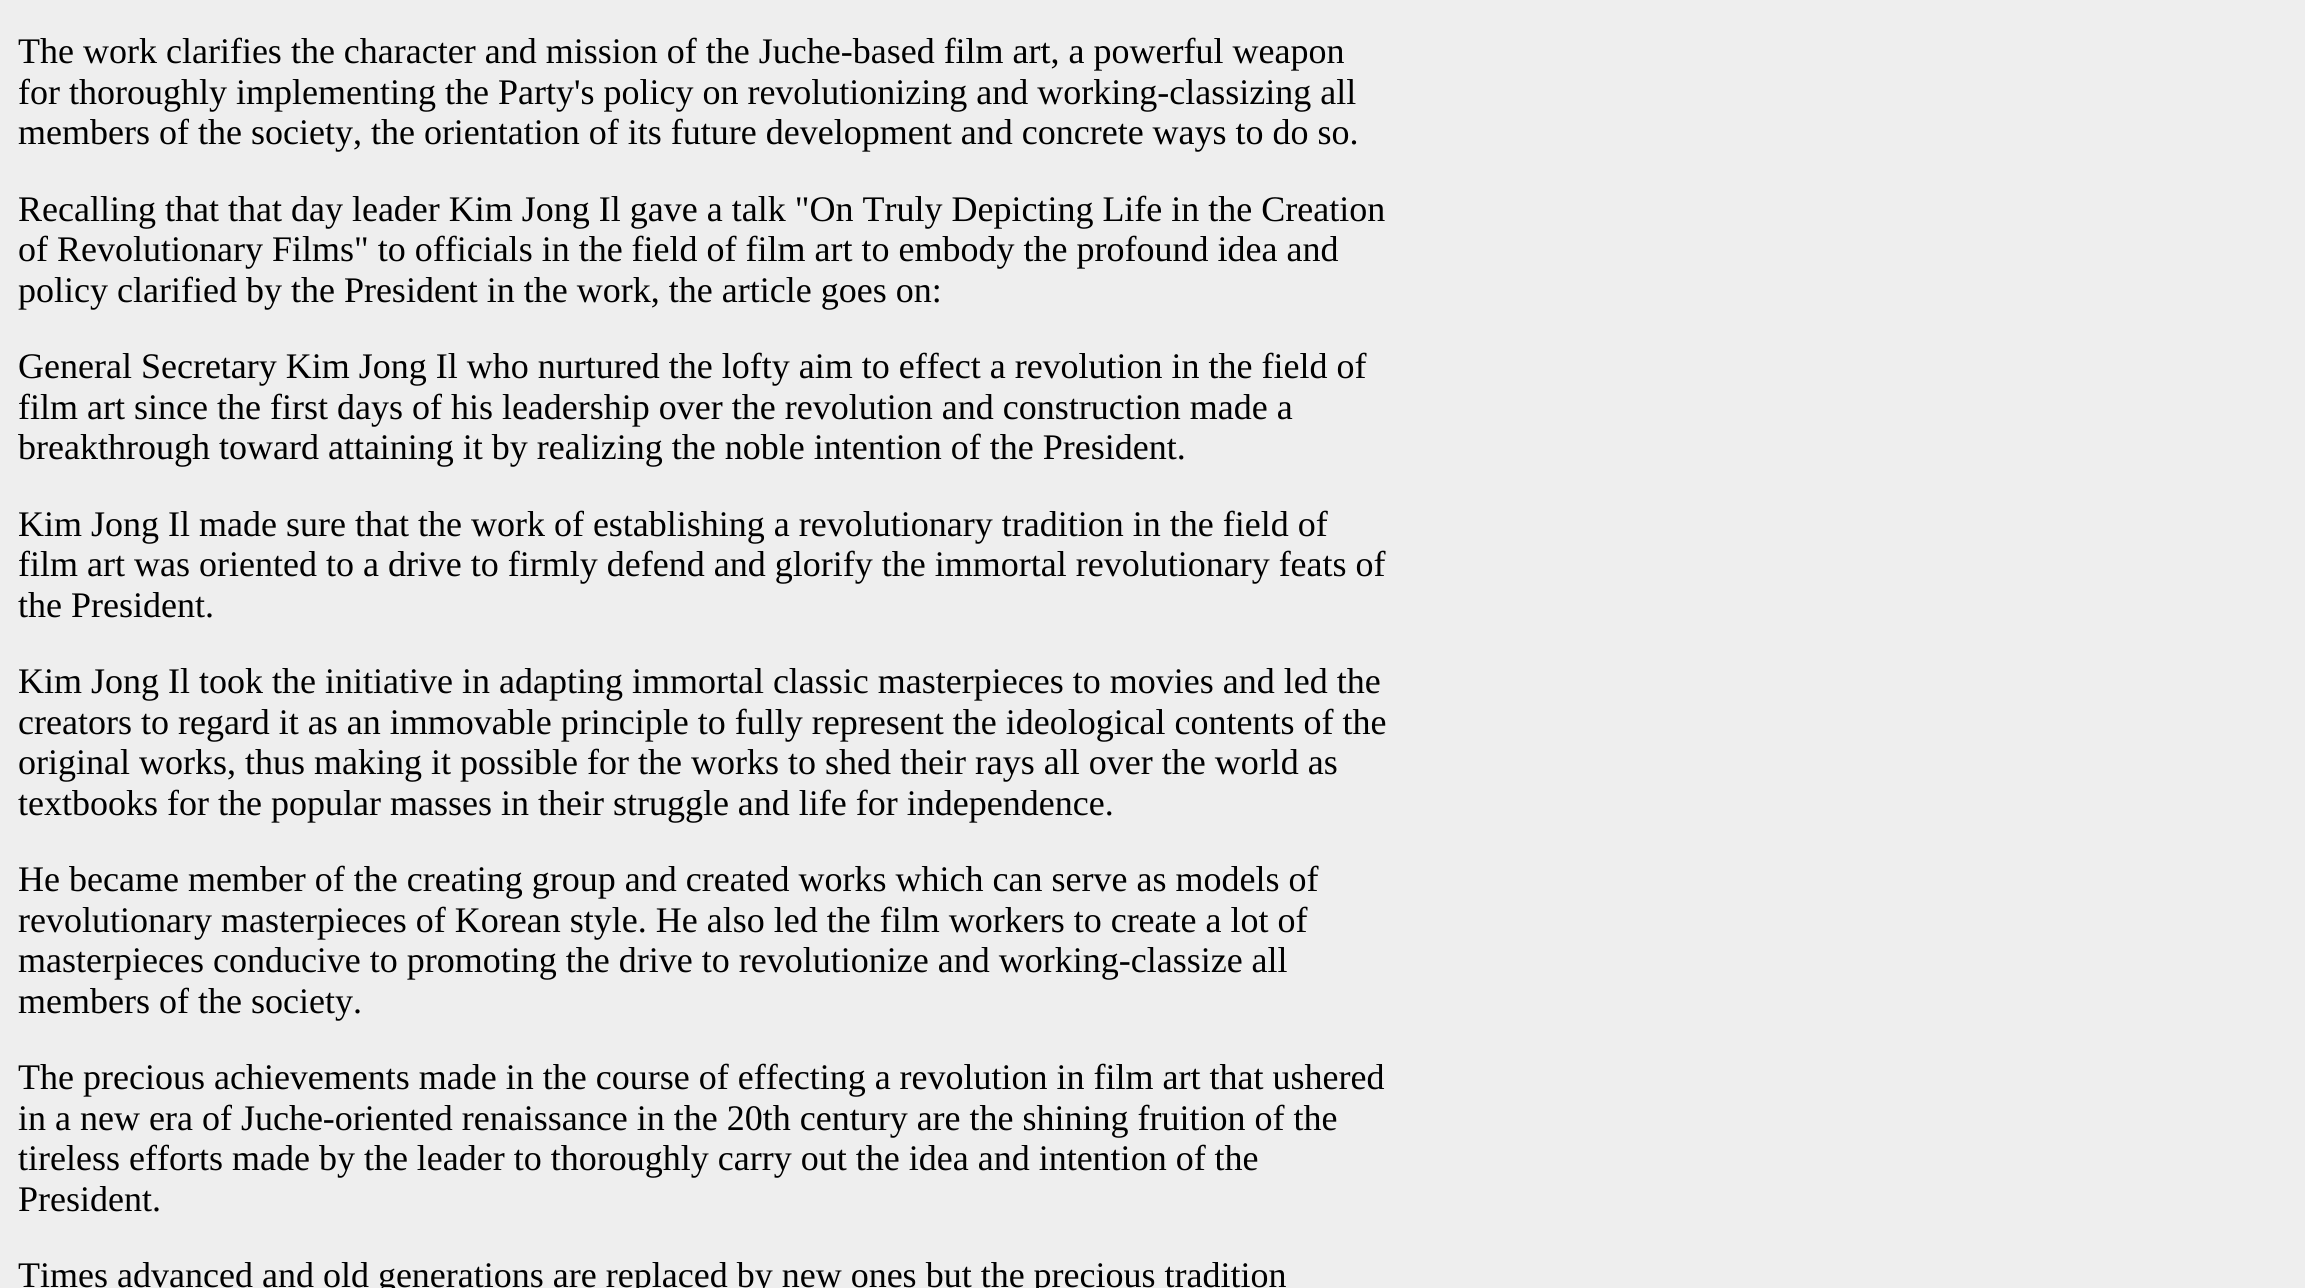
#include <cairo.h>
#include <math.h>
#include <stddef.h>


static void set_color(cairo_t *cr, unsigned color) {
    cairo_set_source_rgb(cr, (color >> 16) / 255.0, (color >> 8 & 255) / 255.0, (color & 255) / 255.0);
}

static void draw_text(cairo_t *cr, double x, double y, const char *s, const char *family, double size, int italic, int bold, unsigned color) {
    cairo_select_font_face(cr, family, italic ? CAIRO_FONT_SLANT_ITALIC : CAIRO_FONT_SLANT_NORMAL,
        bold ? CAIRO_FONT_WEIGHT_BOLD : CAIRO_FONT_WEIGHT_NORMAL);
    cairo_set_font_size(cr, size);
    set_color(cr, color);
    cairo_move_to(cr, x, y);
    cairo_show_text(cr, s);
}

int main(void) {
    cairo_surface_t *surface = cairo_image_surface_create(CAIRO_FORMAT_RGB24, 2305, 1288);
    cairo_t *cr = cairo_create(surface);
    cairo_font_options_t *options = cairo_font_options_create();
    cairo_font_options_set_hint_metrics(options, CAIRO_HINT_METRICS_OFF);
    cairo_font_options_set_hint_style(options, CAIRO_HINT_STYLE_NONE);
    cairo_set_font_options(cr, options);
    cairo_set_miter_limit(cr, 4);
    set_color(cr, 0xEEEEEE);
    cairo_paint(cr);
    draw_text(cr, 18, 63, "The work clarifies the character and mission of the Juche-based film art, a powerful weapon", "Liberation Serif", 36, 0, 0, 0x000000);
    draw_text(cr, 18, 104, "for thoroughly implementing the Party's policy on revolutionizing and working-classizing all", "Liberation Serif", 36, 0, 0, 0x000000);
    draw_text(cr, 18, 144, "members of the society, the orientation of its future development and concrete ways to do so.", "Liberation Serif", 36, 0, 0, 0x000000);
    draw_text(cr, 18, 221, "Recalling that that day leader Kim Jong Il gave a talk \"On Truly Depicting Life in the Creation", "Liberation Serif", 36, 0, 0, 0x000000);
    draw_text(cr, 18, 261, "of Revolutionary Films\" to officials in the field of film art to embody the profound idea and", "Liberation Serif", 36, 0, 0, 0x000000);
    draw_text(cr, 18, 302, "policy clarified by the President in the work, the article goes on:", "Liberation Serif", 36, 0, 0, 0x000000);
    draw_text(cr, 18, 378, "General Secretary Kim Jong Il who nurtured the lofty aim to effect a revolution in the field of", "Liberation Serif", 36, 0, 0, 0x000000);
    draw_text(cr, 18, 419, "film art since the first days of his leadership over the revolution and construction made a", "Liberation Serif", 36, 0, 0, 0x000000);
    draw_text(cr, 18, 459, "breakthrough toward attaining it by realizing the noble intention of the President.", "Liberation Serif", 36, 0, 0, 0x000000);
    draw_text(cr, 18, 536, "Kim Jong Il made sure that the work of establishing a revolutionary tradition in the field of", "Liberation Serif", 36, 0, 0, 0x000000);
    draw_text(cr, 18, 576, "film art was oriented to a drive to firmly defend and glorify the immortal revolutionary feats of", "Liberation Serif", 36, 0, 0, 0x000000);
    draw_text(cr, 18, 617, "the President.", "Liberation Serif", 36, 0, 0, 0x000000);
    draw_text(cr, 18, 693, "Kim Jong Il took the initiative in adapting immortal classic masterpieces to movies and led the", "Liberation Serif", 36, 0, 0, 0x000000);
    draw_text(cr, 18, 734, "creators to regard it as an immovable principle to fully represent the ideological contents of the", "Liberation Serif", 36, 0, 0, 0x000000);
    draw_text(cr, 18, 774, "original works, thus making it possible for the works to shed their rays all over the world as", "Liberation Serif", 36, 0, 0, 0x000000);
    draw_text(cr, 18, 815, "textbooks for the popular masses in their struggle and life for independence.", "Liberation Serif", 36, 0, 0, 0x000000);
    draw_text(cr, 18, 891, "He became member of the creating group and created works which can serve as models of", "Liberation Serif", 36, 0, 0, 0x000000);
    draw_text(cr, 18, 932, "revolutionary masterpieces of Korean style. He also led the film workers to create a lot of", "Liberation Serif", 36, 0, 0, 0x000000);
    draw_text(cr, 18, 972, "masterpieces conducive to promoting the drive to revolutionize and working-classize all", "Liberation Serif", 36, 0, 0, 0x000000);
    draw_text(cr, 18, 1013, "members of the society.", "Liberation Serif", 36, 0, 0, 0x000000);
    draw_text(cr, 18, 1089, "The precious achievements made in the course of effecting a revolution in film art that ushered", "Liberation Serif", 36, 0, 0, 0x000000);
    draw_text(cr, 18, 1130, "in a new era of Juche-oriented renaissance in the 20th century are the shining fruition of the", "Liberation Serif", 36, 0, 0, 0x000000);
    draw_text(cr, 18, 1170, "tireless efforts made by the leader to thoroughly carry out the idea and intention of the", "Liberation Serif", 36, 0, 0, 0x000000);
    draw_text(cr, 18, 1211, "President.", "Liberation Serif", 36, 0, 0, 0x000000);
    draw_text(cr, 18, 1287, "Times advanced and old generations are replaced by new ones but the precious tradition", "Liberation Serif", 36, 0, 0, 0x000000);
    cairo_surface_write_to_png(surface, "output.png");
    cairo_font_options_destroy(options);
    cairo_destroy(cr);
    cairo_surface_destroy(surface);
    return 0;
}
